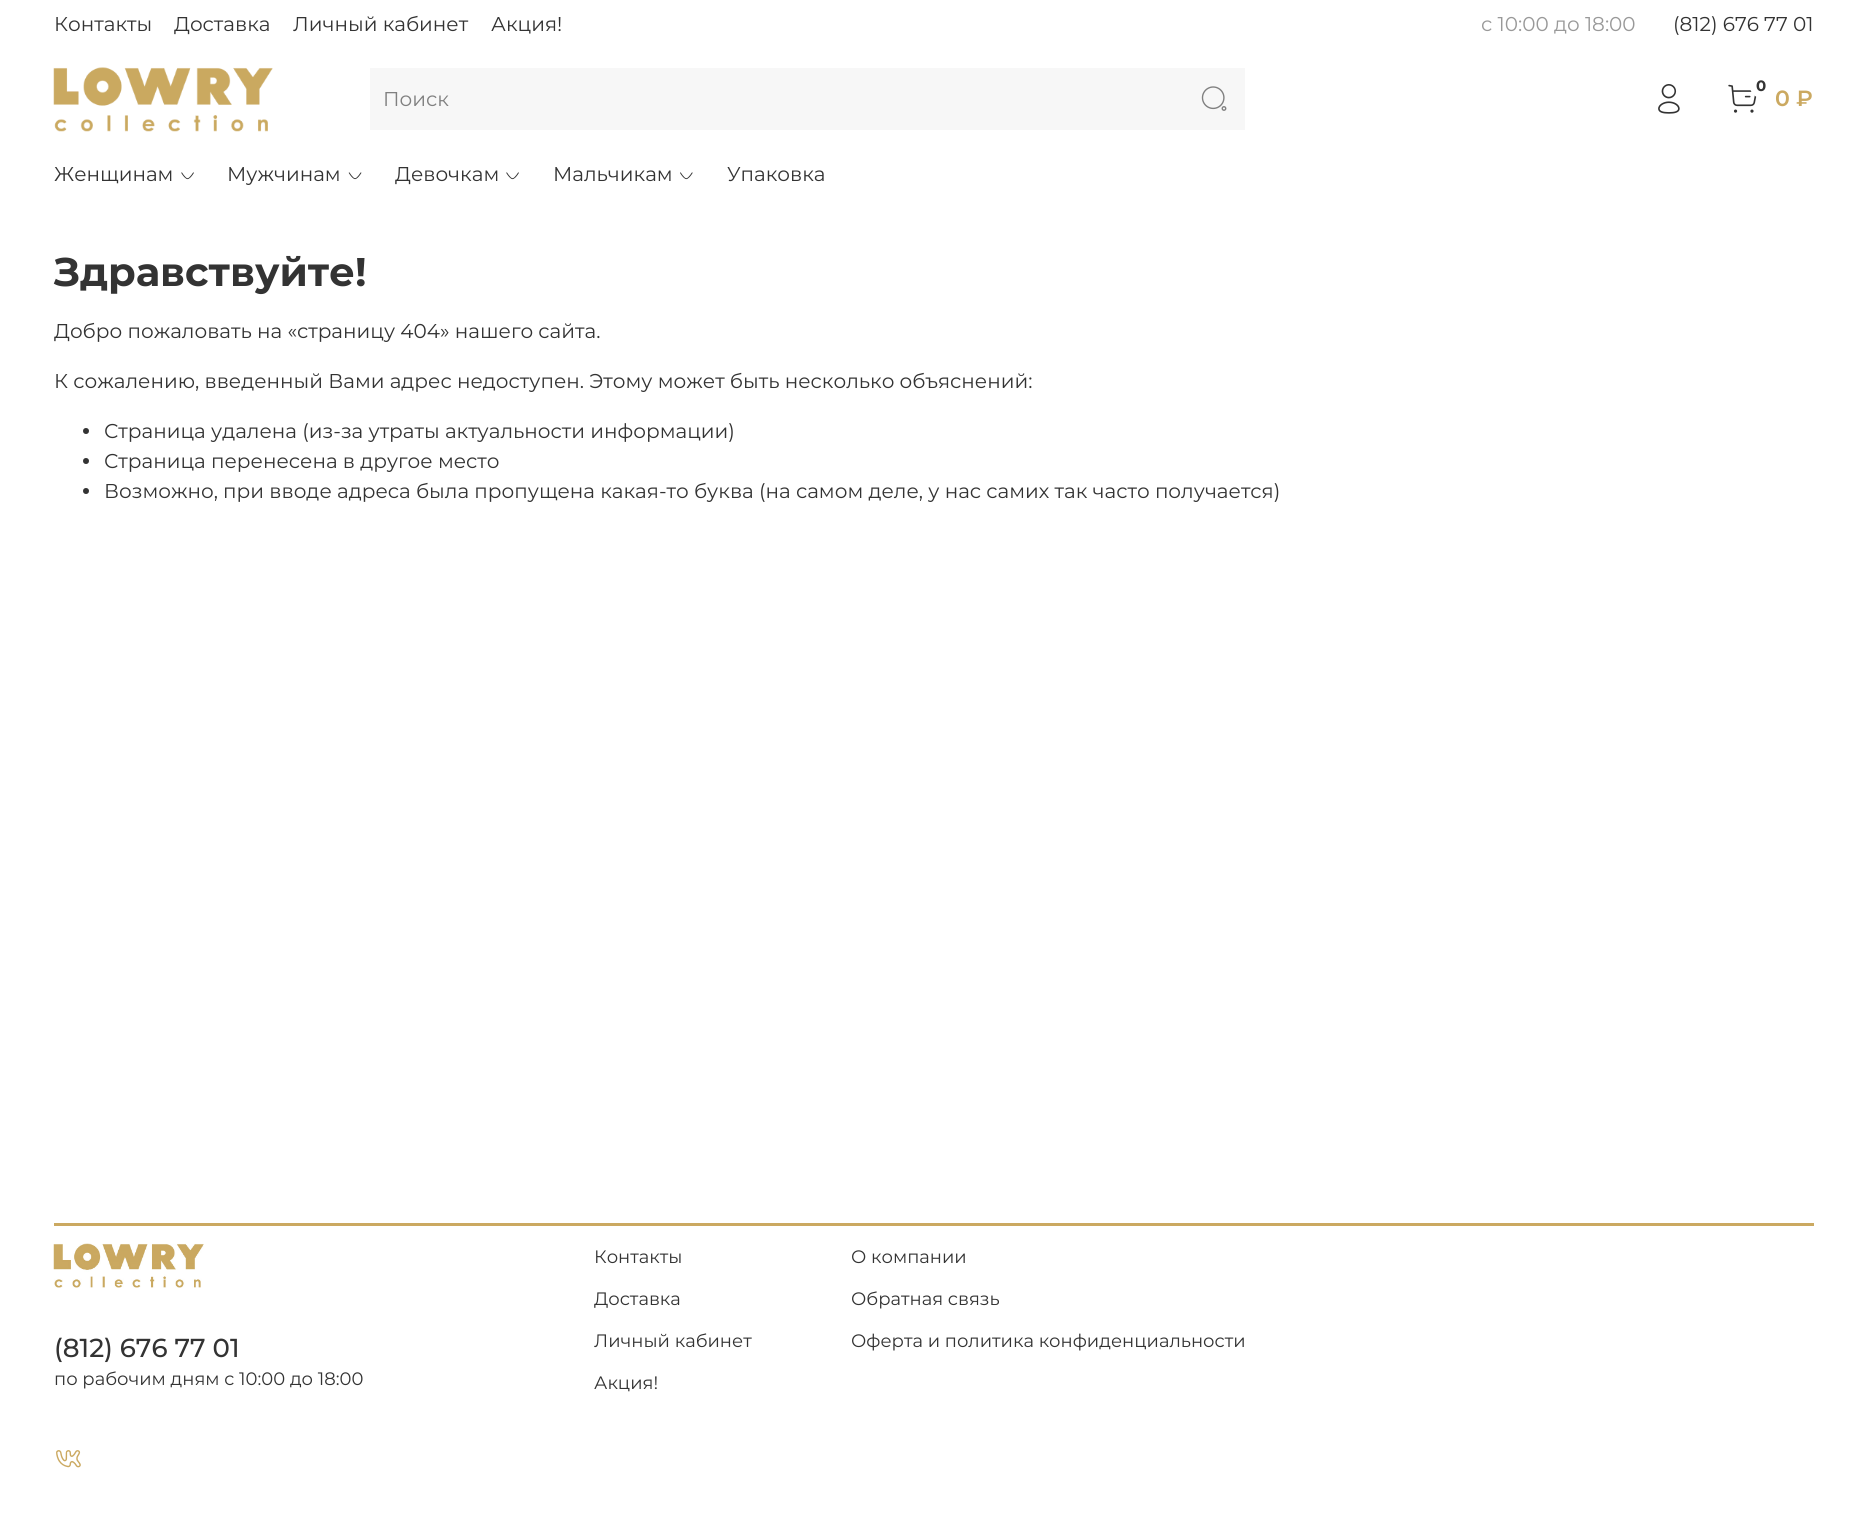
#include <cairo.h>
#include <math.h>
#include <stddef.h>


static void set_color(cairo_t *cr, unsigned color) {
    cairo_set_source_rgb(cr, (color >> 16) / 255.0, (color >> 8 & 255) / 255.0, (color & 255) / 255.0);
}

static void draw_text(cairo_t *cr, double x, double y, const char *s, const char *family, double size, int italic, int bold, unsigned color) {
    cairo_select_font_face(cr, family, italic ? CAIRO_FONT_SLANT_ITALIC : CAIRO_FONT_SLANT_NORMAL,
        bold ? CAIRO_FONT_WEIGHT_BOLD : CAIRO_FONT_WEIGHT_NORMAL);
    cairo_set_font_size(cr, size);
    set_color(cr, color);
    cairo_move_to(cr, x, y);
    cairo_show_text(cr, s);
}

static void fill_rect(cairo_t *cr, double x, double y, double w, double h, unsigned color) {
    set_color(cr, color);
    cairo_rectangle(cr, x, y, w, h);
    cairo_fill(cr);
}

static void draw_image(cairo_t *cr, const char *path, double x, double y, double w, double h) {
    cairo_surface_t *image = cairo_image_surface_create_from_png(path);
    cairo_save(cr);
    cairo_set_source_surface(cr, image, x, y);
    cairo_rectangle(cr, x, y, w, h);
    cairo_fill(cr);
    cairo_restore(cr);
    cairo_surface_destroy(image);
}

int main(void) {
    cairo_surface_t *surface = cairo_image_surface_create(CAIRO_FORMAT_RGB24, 1867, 1527);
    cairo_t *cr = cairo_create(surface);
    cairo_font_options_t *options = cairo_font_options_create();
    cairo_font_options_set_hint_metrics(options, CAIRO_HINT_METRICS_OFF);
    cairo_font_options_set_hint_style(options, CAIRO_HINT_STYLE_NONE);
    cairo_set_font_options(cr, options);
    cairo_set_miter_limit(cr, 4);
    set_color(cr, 0xFFFFFF);
    cairo_paint(cr);
    draw_text(cr, 54, 31, "Контакты", "Montserrat", 20, 0, 0, 0x333333);
    draw_text(cr, 174, 31, "Доставка", "Montserrat", 20, 0, 0, 0x333333);
    draw_text(cr, 293, 31, "Личный кабинет", "Montserrat", 20, 0, 0, 0x333333);
    draw_text(cr, 491, 31, "Акция!", "Montserrat", 20, 0, 0, 0x333333);
    draw_text(cr, 1481, 31, "с 10:00 до 18:00", "Montserrat", 20, 0, 0, 0x999999);
    draw_text(cr, 1673, 31, "(812) 676 77 01", "Montserrat", 20, 0, 0, 0x333333);
    draw_image(cr, "assets/img1.png", 53, 67, 220, 65);
    fill_rect(cr, 370, 68, 875, 62, 0xF7F7F7);
    draw_text(cr, 383, 106, "Поиск", "Montserrat", 20, 0, 0, 0x808080);
    draw_image(cr, "assets/img2.png", 1201, 86, 26, 25);
    draw_image(cr, "assets/img3.png", 1658, 84, 22, 30);
    draw_image(cr, "assets/img4.png", 1728, 84, 29, 29);
    set_color(cr, 0xFFFFFF);
    cairo_arc(cr, 1761.5, 86.5, 11.5, 0, 2 * M_PI);
    cairo_fill(cr);
    draw_text(cr, 1756, 91, "0", "Montserrat", 15, 0, 1, 0x333333);
    draw_text(cr, 1775, 106, "0 ₽", "Montserrat SemiBold", 22, 0, 0, 0xCBA961);
    draw_text(cr, 54, 181, "Женщинам", "Montserrat", 20, 0, 0, 0x333333);
    draw_image(cr, "assets/img5.png", 181, 172, 13, 8);
    draw_text(cr, 227, 181, "Мужчинам", "Montserrat", 20, 0, 0, 0x333333);
    draw_image(cr, "assets/img6.png", 348, 172, 14, 8);
    draw_text(cr, 395, 181, "Девочкам", "Montserrat", 20, 0, 0, 0x333333);
    draw_image(cr, "assets/img5.png", 506, 172, 13, 8);
    draw_text(cr, 553, 181, "Мальчикам", "Montserrat", 20, 0, 0, 0x333333);
    draw_image(cr, "assets/img7.png", 680, 172, 13, 8);
    draw_text(cr, 727, 181, "Упаковка", "Montserrat", 20, 0, 0, 0x333333);
    draw_text(cr, 54, 286, "Здравствуйте!", "Montserrat", 40, 0, 1, 0x333333);
    draw_text(cr, 54, 338, "Добро пожаловать на «страницу 404» нашего сайта.", "Montserrat", 20, 0, 0, 0x333333);
    draw_text(cr, 54, 388, "К сожалению, введенный Вами адрес недоступен. Этому может быть несколько объяснений:", "Montserrat", 20, 0, 0, 0x333333);
    cairo_new_path(cr);
    cairo_arc(cr, 86, 431, 3, 0, 2 * M_PI);
    cairo_fill(cr);
    draw_text(cr, 104, 438, "Страница удалена (из-за утраты актуальности информации)", "Montserrat", 20, 0, 0, 0x333333);
    cairo_new_path(cr);
    cairo_arc(cr, 86, 461, 3, 0, 2 * M_PI);
    cairo_fill(cr);
    draw_text(cr, 104, 468, "Страница перенесена в другое место", "Montserrat", 20, 0, 0, 0x333333);
    cairo_new_path(cr);
    cairo_arc(cr, 86, 491, 3, 0, 2 * M_PI);
    cairo_fill(cr);
    draw_text(cr, 104, 498, "Возможно, при вводе адреса была пропущена какая-то буква (на самом деле, у нас самих так часто получается)", "Montserrat", 20, 0, 0, 0x333333);
    fill_rect(cr, 54, 1223, 1760, 3, 0xCBA961);
    draw_image(cr, "assets/img8.png", 53, 1243, 151, 45);
    draw_text(cr, 54, 1357, "(812) 676 77 01", "Montserrat Medium", 26, 0, 0, 0x333333);
    draw_text(cr, 54, 1385, "по рабочим дням c 10:00 до 18:00", "Montserrat", 18, 0, 0, 0x333333);
    draw_image(cr, "assets/img9.png", 56, 1450, 25, 18);
    draw_text(cr, 594, 1263, "Контакты", "Montserrat", 18, 0, 0, 0x333333);
    draw_text(cr, 594, 1305, "Доставка", "Montserrat", 18, 0, 0, 0x333333);
    draw_text(cr, 594, 1347, "Личный кабинет", "Montserrat", 18, 0, 0, 0x333333);
    draw_text(cr, 594, 1389, "Акция!", "Montserrat", 18, 0, 0, 0x333333);
    draw_text(cr, 851, 1263, "О компании", "Montserrat", 18, 0, 0, 0x333333);
    draw_text(cr, 851, 1305, "Обратная связь", "Montserrat", 18, 0, 0, 0x333333);
    draw_text(cr, 851, 1347, "Оферта и политика конфиденциальности", "Montserrat", 18, 0, 0, 0x333333);
    cairo_surface_write_to_png(surface, "output.png");
    cairo_font_options_destroy(options);
    cairo_destroy(cr);
    cairo_surface_destroy(surface);
    return 0;
}
